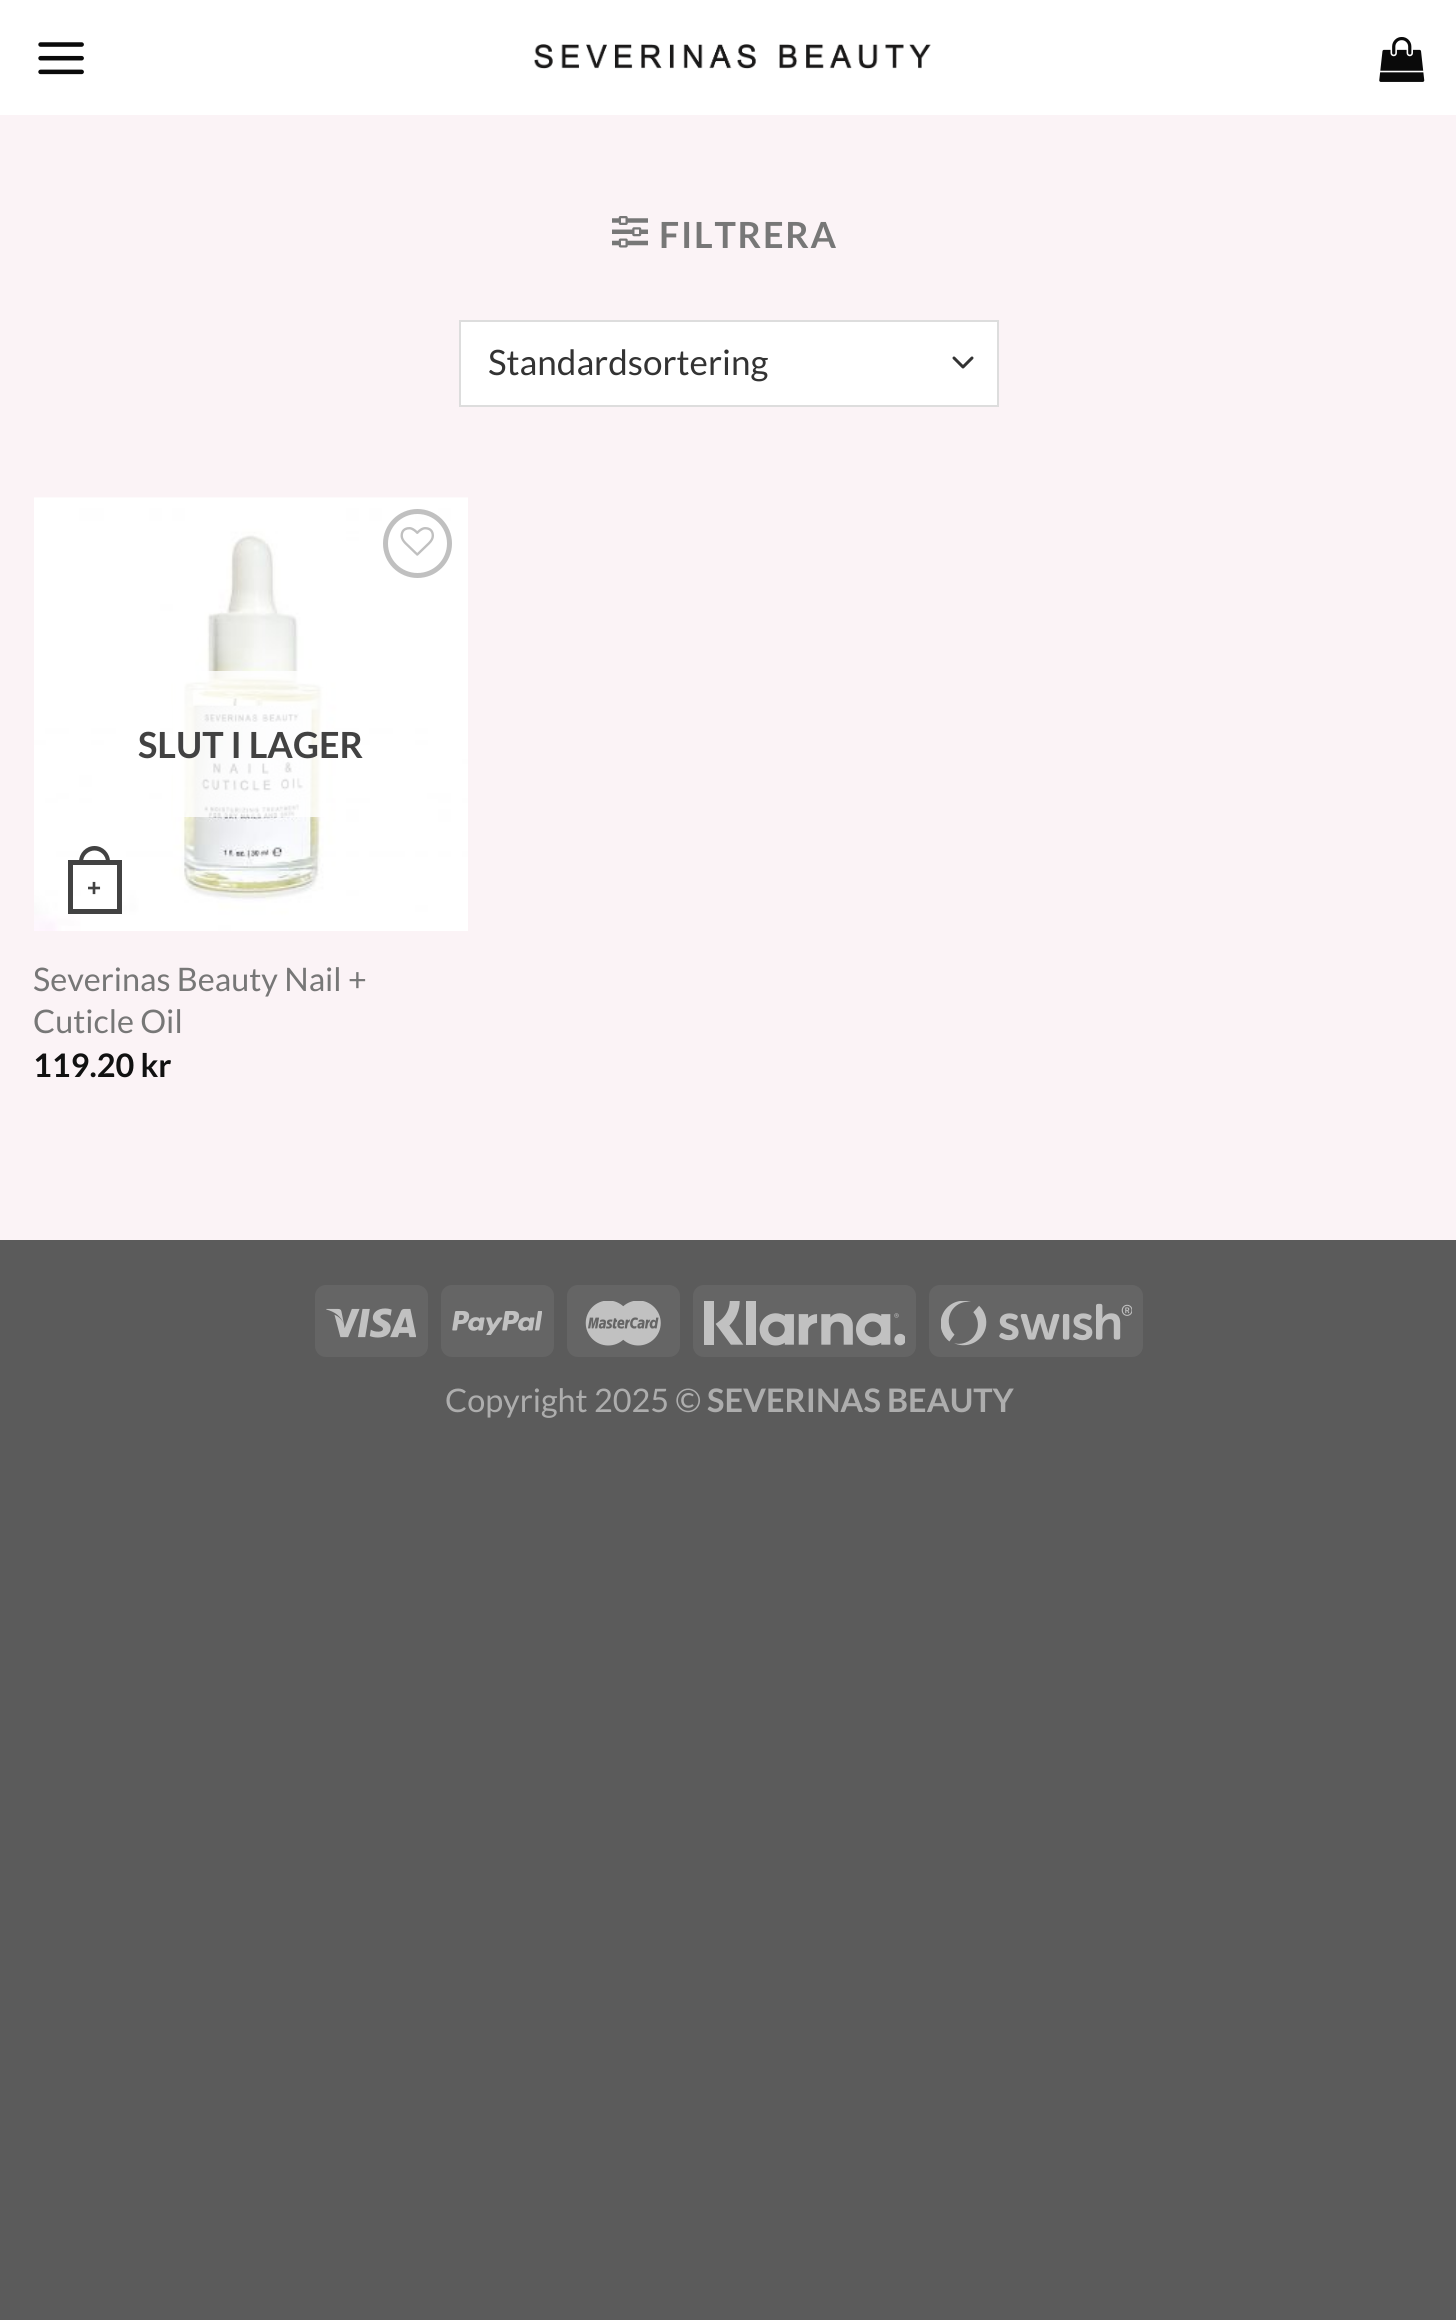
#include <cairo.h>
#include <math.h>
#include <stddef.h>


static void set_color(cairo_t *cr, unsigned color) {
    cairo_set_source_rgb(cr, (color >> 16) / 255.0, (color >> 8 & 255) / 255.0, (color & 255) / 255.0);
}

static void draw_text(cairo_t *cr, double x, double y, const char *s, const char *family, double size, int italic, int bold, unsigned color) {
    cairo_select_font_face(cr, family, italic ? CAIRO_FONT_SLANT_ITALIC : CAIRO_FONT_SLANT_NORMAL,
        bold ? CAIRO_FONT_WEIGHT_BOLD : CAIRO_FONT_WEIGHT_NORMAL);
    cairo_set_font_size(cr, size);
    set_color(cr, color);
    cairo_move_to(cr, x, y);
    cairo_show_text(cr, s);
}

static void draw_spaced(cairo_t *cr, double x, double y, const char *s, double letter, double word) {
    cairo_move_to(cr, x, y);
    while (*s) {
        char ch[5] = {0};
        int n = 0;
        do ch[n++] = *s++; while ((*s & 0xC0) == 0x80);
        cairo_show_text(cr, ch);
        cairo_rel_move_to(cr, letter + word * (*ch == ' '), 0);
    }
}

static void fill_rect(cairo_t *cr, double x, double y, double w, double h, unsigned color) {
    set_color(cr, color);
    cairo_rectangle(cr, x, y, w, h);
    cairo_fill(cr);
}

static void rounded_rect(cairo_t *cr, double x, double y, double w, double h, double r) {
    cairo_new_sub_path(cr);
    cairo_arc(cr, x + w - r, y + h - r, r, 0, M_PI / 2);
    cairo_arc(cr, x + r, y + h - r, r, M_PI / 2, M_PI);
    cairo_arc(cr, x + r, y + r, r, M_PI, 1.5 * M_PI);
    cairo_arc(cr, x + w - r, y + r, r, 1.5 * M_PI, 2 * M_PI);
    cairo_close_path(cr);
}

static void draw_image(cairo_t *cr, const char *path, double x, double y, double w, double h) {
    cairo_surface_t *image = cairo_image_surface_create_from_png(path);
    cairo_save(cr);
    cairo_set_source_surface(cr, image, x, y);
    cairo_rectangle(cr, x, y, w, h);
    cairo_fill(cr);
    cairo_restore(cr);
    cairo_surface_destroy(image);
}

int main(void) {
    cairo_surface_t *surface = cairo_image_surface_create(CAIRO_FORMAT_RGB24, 1456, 2320);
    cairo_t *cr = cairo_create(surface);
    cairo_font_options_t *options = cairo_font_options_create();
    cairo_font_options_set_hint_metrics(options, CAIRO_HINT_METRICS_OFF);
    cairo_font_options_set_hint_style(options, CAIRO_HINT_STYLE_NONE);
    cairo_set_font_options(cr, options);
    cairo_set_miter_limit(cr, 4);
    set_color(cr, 0x5B5B5B);
    cairo_paint(cr);
    fill_rect(cr, 0, 115, 1456, 1125, 0xFBF3F6);
    fill_rect(cr, 0, 0, 1456, 115, 0xFFFFFF);
    draw_image(cr, "assets/img1.png", 38, 42, 46, 33);
    draw_image(cr, "assets/img2.png", 534, 44, 397, 25);
    draw_image(cr, "assets/img3.png", 1379, 37, 46, 45);
    draw_image(cr, "assets/img4.png", 612, 216, 36, 32);
    cairo_select_font_face(cr, "Lato", CAIRO_FONT_SLANT_NORMAL, CAIRO_FONT_WEIGHT_BOLD);
    cairo_set_font_size(cr, 36);
    set_color(cr, 0x777777);
    draw_spaced(cr, 659, 248, "FILTRERA", 1.75, 0);
    fill_rect(cr, 461, 322, 536, 83, 0xFFFFFF);
    cairo_new_path(cr);
    cairo_move_to(cr, 954, 358);
    cairo_line_to(cr, 963, 367);
    cairo_line_to(cr, 972, 358);
    set_color(cr, 0x333333);
    cairo_set_line_width(cr, 3);
    cairo_set_line_cap(cr, CAIRO_LINE_CAP_ROUND);
    cairo_set_line_join(cr, CAIRO_LINE_JOIN_ROUND);
    cairo_stroke(cr);
    cairo_rectangle(cr, 460, 321, 538, 85);
    set_color(cr, 0xDDDDDD);
    cairo_set_line_width(cr, 2);
    cairo_set_line_cap(cr, CAIRO_LINE_CAP_BUTT);
    cairo_set_line_join(cr, CAIRO_LINE_JOIN_MITER);
    cairo_stroke(cr);
    draw_text(cr, 488, 375, "Standardsortering", "Lato", 35, 0, 0, 0x333333);
    draw_image(cr, "assets/img5.png", 34, 497, 434, 434);
    cairo_arc(cr, 417.5, 543.5, 32, 0, 2 * M_PI);
    set_color(cr, 0xC0C0C0);
    cairo_set_line_width(cr, 5);
    cairo_stroke(cr);
    draw_image(cr, "assets/img6.png", 400, 527, 34, 29);
    cairo_set_source_rgba(cr, 1, 1, 1, 0.81);
    cairo_rectangle(cr, 173, 671, 153, 146);
    cairo_fill(cr);
    draw_text(cr, 138, 758, "SLUT I LAGER", "Lato", 36, 0, 1, 0x424242);
    cairo_rectangle(cr, 70.5, 862.5, 49, 49);
    cairo_stroke(cr);
    cairo_set_fill_rule(cr, CAIRO_FILL_RULE_EVEN_ODD);
    cairo_new_path(cr);
    cairo_move_to(cr, 94.5, 846);
    cairo_curve_to(cr, 103, 846, 110, 853, 110, 862);
    cairo_line_to(cr, 110, 864);
    cairo_line_to(cr, 79, 864);
    cairo_line_to(cr, 79, 862);
    cairo_curve_to(cr, 79, 853, 86, 846, 94.5, 846);
    cairo_close_path(cr);
    cairo_move_to(cr, 94.5, 850.5);
    cairo_curve_to(cr, 100.5, 850.5, 106, 855.5, 106, 862);
    cairo_line_to(cr, 106, 864);
    cairo_line_to(cr, 83, 864);
    cairo_line_to(cr, 83, 862);
    cairo_curve_to(cr, 83, 855.5, 88.5, 850.5, 94.5, 850.5);
    cairo_close_path(cr);
    cairo_fill(cr);
    draw_text(cr, 87, 896, "+", "Liberation Sans", 24, 0, 1, 0x424242);
    draw_text(cr, 33, 991, "Severinas Beauty Nail +", "Lato", 32.4, 0, 0, 0x777777);
    draw_text(cr, 33, 1033, "Cuticle Oil", "Lato", 32.4, 0, 0, 0x777777);
    draw_text(cr, 33, 1077, "119.20 kr", "Lato", 32.4, 0, 1, 0x111111);
    set_color(cr, 0x656565);
    rounded_rect(cr, 315, 1285, 113, 72, 11);
    cairo_fill(cr);
    draw_image(cr, "assets/img7.png", 326, 1308, 90, 30);
    rounded_rect(cr, 441, 1285, 113, 72, 11);
    cairo_fill(cr);
    draw_image(cr, "assets/img8.png", 452, 1311, 90, 24);
    rounded_rect(cr, 567, 1285, 113, 72, 11);
    cairo_fill(cr);
    draw_image(cr, "assets/img9.png", 585, 1301, 76, 45);
    rounded_rect(cr, 693, 1285, 223, 72, 11);
    cairo_fill(cr);
    draw_image(cr, "assets/img10.png", 704, 1301, 201, 45);
    rounded_rect(cr, 929, 1285, 214, 72, 11);
    cairo_fill(cr);
    draw_image(cr, "assets/img11.png", 941, 1301, 191, 45);
    draw_text(cr, 445, 1412, "Copyright 2025 ©", "Lato", 32.4, 0, 0, 0xADADAD);
    draw_text(cr, 707, 1412, "SEVERINAS BEAUTY", "Lato", 32.4, 0, 1, 0xADADAD);
    cairo_surface_write_to_png(surface, "output.png");
    cairo_font_options_destroy(options);
    cairo_destroy(cr);
    cairo_surface_destroy(surface);
    return 0;
}
